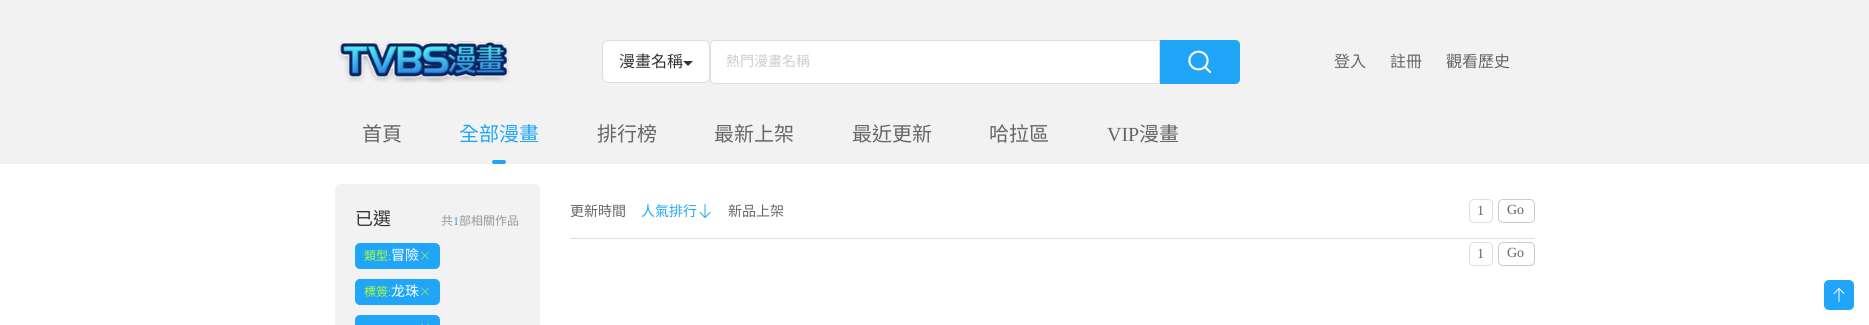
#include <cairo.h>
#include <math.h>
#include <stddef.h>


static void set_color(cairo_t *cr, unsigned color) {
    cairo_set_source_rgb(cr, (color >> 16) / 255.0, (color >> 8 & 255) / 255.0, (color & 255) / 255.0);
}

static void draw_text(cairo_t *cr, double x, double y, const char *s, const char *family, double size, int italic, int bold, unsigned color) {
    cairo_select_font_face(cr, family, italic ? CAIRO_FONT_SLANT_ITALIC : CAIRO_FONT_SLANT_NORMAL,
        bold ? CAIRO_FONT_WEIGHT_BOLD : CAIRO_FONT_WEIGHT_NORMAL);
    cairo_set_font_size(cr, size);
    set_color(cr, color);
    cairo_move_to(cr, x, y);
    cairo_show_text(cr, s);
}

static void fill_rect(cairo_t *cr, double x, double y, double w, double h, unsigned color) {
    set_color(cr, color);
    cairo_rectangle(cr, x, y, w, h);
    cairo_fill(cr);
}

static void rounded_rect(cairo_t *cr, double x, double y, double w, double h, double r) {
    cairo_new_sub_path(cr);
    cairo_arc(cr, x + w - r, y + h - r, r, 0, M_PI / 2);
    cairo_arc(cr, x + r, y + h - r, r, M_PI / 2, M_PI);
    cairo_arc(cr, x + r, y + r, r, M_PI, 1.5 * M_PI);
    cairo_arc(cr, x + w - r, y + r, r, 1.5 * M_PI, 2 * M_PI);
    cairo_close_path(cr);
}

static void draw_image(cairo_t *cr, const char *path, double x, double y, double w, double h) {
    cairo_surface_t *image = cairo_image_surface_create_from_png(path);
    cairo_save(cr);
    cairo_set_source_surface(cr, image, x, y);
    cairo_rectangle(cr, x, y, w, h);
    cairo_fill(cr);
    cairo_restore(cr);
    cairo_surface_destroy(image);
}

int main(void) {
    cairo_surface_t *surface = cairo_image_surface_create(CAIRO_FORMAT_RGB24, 1869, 325);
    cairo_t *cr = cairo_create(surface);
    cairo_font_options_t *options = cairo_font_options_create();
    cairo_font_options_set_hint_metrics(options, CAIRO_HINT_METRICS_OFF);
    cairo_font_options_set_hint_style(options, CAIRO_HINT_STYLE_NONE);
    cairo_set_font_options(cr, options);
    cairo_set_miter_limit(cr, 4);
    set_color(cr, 0xFFFFFF);
    cairo_paint(cr);
    fill_rect(cr, 0, 0, 1869, 164, 0xF2F2F2);
    draw_image(cr, "assets/img1.png", 338, 40, 172, 43);
    set_color(cr, 0xFFFFFF);
    rounded_rect(cr, 602.5, 40.5, 107, 42, 5.5);
    cairo_fill_preserve(cr);
    set_color(cr, 0xDEDEDE);
    cairo_set_line_width(cr, 1);
    cairo_stroke(cr);
    draw_text(cr, 619, 67, "漫畫名稱", "Noto Sans CJK TC", 16, 0, 0, 0x333333);
    cairo_new_path(cr);
    cairo_move_to(cr, 683, 61);
    cairo_line_to(cr, 693, 61);
    cairo_line_to(cr, 688, 66);
    cairo_close_path(cr);
    cairo_fill(cr);
    set_color(cr, 0xFFFFFF);
    cairo_new_path(cr);
    cairo_move_to(cr, 715, 40.5);
    cairo_line_to(cr, 1159.5, 40.5);
    cairo_line_to(cr, 1159.5, 83.5);
    cairo_line_to(cr, 715, 83.5);
    cairo_curve_to(cr, 712.5, 83.5, 710.5, 81.5, 710.5, 79);
    cairo_line_to(cr, 710.5, 45);
    cairo_curve_to(cr, 710.5, 42.5, 712.5, 40.5, 715, 40.5);
    cairo_close_path(cr);
    cairo_fill_preserve(cr);
    set_color(cr, 0xDEDEDE);
    cairo_stroke(cr);
    draw_text(cr, 726, 66, "熱門漫畫名稱", "Noto Sans CJK TC", 14, 0, 0, 0xCCCCCC);
    set_color(cr, 0x21A5F8);
    cairo_new_path(cr);
    cairo_move_to(cr, 1160, 40);
    cairo_line_to(cr, 1235, 40);
    cairo_curve_to(cr, 1238, 40, 1240, 42, 1240, 45);
    cairo_line_to(cr, 1240, 79);
    cairo_curve_to(cr, 1240, 82, 1238, 84, 1235, 84);
    cairo_line_to(cr, 1160, 84);
    cairo_close_path(cr);
    cairo_fill(cr);
    draw_image(cr, "assets/img2.png", 1188, 50, 24, 24);
    draw_text(cr, 1334, 67, "登入", "Noto Sans CJK TC", 16, 0, 0, 0x666666);
    draw_text(cr, 1390, 67, "註冊", "Noto Sans CJK TC", 16, 0, 0, 0x666666);
    draw_text(cr, 1446, 67, "觀看歷史", "Noto Sans CJK TC", 16, 0, 0, 0x666666);
    draw_text(cr, 362, 141, "首頁", "Noto Sans CJK TC", 20, 0, 0, 0x666666);
    draw_text(cr, 459, 141, "全部漫畫", "Noto Sans CJK TC", 20, 0, 0, 0x21A5F8);
    rounded_rect(cr, 492, 160, 14, 4, 2);
    cairo_fill(cr);
    draw_text(cr, 597, 141, "排行榜", "Noto Sans CJK TC", 20, 0, 0, 0x666666);
    draw_text(cr, 714, 141, "最新上架", "Noto Sans CJK TC", 20, 0, 0, 0x666666);
    draw_text(cr, 852, 141, "最近更新", "Noto Sans CJK TC", 20, 0, 0, 0x666666);
    draw_text(cr, 989, 141, "哈拉區", "Noto Sans CJK TC", 20, 0, 0, 0x666666);
    draw_text(cr, 1107, 141, "VIP", "Liberation Serif", 20, 0, 0, 0x666666);
    draw_text(cr, 1139, 141, "漫畫", "Noto Sans CJK TC", 20, 0, 0, 0x666666);
    set_color(cr, 0xF2F2F2);
    rounded_rect(cr, 335, 184, 205, 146, 5);
    cairo_fill(cr);
    draw_text(cr, 355, 225, "已選", "Noto Sans CJK TC", 18, 0, 0, 0x333333);
    draw_text(cr, 441, 225, "共", "Noto Sans CJK TC", 12, 0, 0, 0x999999);
    draw_text(cr, 453, 225, "1", "Liberation Serif", 12, 0, 0, 0x21A5F8);
    draw_text(cr, 459, 225, "部相關作品", "Noto Sans CJK TC", 12, 0, 0, 0x999999);
    set_color(cr, 0x21A5F8);
    rounded_rect(cr, 355, 243, 85, 26, 5);
    cairo_fill(cr);
    draw_text(cr, 364, 260, "類型", "Noto Sans CJK TC", 12, 0, 0, 0xADFF2F);
    draw_text(cr, 388, 260, ":", "Liberation Serif", 12, 0, 0, 0xADFF2F);
    draw_text(cr, 391, 260, "冒險", "Noto Sans CJK TC", 14, 0, 0, 0xFFFFFF);
    draw_image(cr, "assets/img3.png", 421, 251, 8, 9);
    set_color(cr, 0x21A5F8);
    rounded_rect(cr, 355, 279, 85, 26, 5);
    cairo_fill(cr);
    draw_text(cr, 364, 296, "標簽", "Noto Sans CJK TC", 12, 0, 0, 0xADFF2F);
    draw_text(cr, 388, 296, ":", "Liberation Serif", 12, 0, 0, 0xADFF2F);
    draw_text(cr, 391, 296, "龙珠", "Noto Sans CJK TC", 14, 0, 0, 0xFFFFFF);
    draw_image(cr, "assets/img3.png", 421, 287, 8, 9);
    set_color(cr, 0x21A5F8);
    rounded_rect(cr, 355, 315, 85, 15, 5);
    cairo_fill(cr);
    draw_image(cr, "assets/img4.png", 421, 323, 8, 2);
    fill_rect(cr, 570, 238, 965, 1, 0xDDDDDD);
    draw_text(cr, 570, 216, "更新時間", "Noto Sans CJK TC", 14, 0, 0, 0x666666);
    draw_text(cr, 641, 216, "人氣排行", "Noto Sans CJK TC", 14, 0, 0, 0x21A5F8);
    draw_image(cr, "assets/img5.png", 699, 204, 12, 14);
    draw_text(cr, 728, 216, "新品上架", "Noto Sans CJK TC", 14, 0, 0, 0x666666);
    rounded_rect(cr, 1469.5, 199.5, 23, 23, 4.5);
    set_color(cr, 0xDEDEDE);
    cairo_stroke(cr);
    draw_text(cr, 1477, 215, "1", "Liberation Serif", 14, 0, 0, 0x666666);
    rounded_rect(cr, 1498.5, 199.5, 36, 23, 4.5);
    set_color(cr, 0xCCCCCC);
    cairo_stroke(cr);
    draw_text(cr, 1507, 214, "Go", "Liberation Serif", 14, 0, 0, 0x666666);
    rounded_rect(cr, 1469.5, 242.5, 23, 23, 4.5);
    set_color(cr, 0xDEDEDE);
    cairo_stroke(cr);
    draw_text(cr, 1477, 258, "1", "Liberation Serif", 14, 0, 0, 0x666666);
    rounded_rect(cr, 1498.5, 242.5, 36, 23, 4.5);
    set_color(cr, 0xCCCCCC);
    cairo_stroke(cr);
    draw_text(cr, 1507, 257, "Go", "Liberation Serif", 14, 0, 0, 0x666666);
    set_color(cr, 0x21A5F8);
    rounded_rect(cr, 1824, 280, 30, 30, 5);
    cairo_fill(cr);
    draw_image(cr, "assets/img6.png", 1833, 288, 12, 14);
    cairo_surface_write_to_png(surface, "output.png");
    cairo_font_options_destroy(options);
    cairo_destroy(cr);
    cairo_surface_destroy(surface);
    return 0;
}
